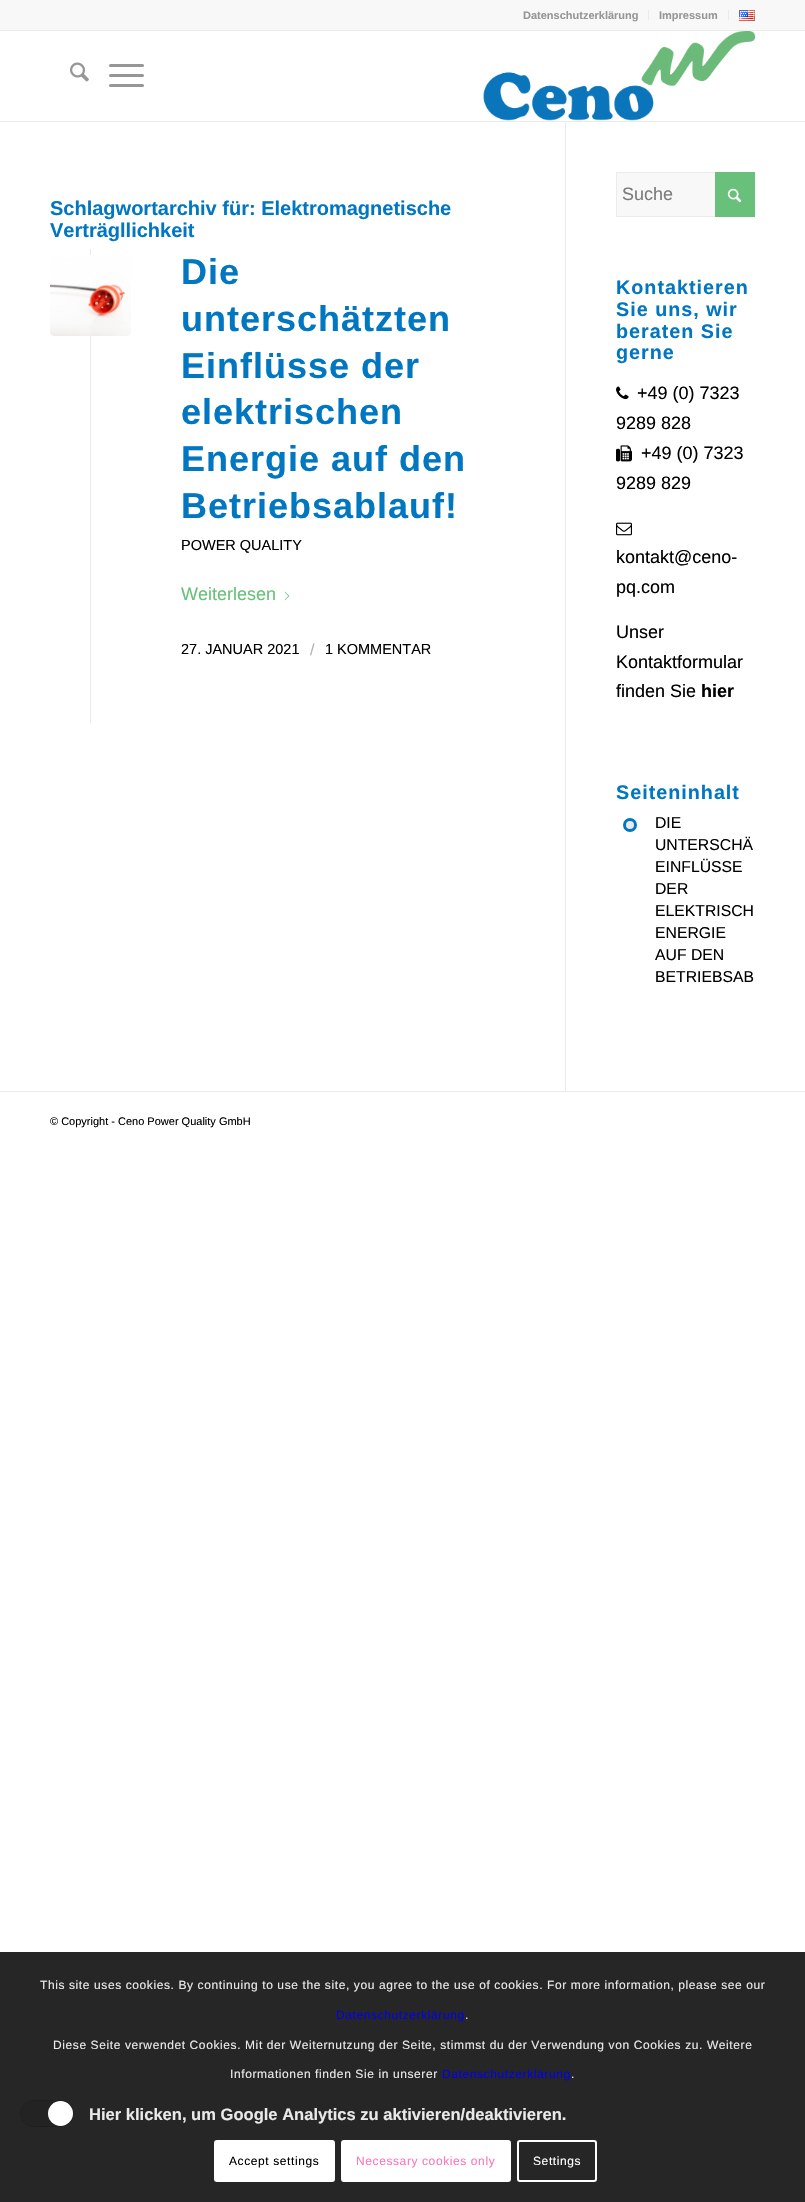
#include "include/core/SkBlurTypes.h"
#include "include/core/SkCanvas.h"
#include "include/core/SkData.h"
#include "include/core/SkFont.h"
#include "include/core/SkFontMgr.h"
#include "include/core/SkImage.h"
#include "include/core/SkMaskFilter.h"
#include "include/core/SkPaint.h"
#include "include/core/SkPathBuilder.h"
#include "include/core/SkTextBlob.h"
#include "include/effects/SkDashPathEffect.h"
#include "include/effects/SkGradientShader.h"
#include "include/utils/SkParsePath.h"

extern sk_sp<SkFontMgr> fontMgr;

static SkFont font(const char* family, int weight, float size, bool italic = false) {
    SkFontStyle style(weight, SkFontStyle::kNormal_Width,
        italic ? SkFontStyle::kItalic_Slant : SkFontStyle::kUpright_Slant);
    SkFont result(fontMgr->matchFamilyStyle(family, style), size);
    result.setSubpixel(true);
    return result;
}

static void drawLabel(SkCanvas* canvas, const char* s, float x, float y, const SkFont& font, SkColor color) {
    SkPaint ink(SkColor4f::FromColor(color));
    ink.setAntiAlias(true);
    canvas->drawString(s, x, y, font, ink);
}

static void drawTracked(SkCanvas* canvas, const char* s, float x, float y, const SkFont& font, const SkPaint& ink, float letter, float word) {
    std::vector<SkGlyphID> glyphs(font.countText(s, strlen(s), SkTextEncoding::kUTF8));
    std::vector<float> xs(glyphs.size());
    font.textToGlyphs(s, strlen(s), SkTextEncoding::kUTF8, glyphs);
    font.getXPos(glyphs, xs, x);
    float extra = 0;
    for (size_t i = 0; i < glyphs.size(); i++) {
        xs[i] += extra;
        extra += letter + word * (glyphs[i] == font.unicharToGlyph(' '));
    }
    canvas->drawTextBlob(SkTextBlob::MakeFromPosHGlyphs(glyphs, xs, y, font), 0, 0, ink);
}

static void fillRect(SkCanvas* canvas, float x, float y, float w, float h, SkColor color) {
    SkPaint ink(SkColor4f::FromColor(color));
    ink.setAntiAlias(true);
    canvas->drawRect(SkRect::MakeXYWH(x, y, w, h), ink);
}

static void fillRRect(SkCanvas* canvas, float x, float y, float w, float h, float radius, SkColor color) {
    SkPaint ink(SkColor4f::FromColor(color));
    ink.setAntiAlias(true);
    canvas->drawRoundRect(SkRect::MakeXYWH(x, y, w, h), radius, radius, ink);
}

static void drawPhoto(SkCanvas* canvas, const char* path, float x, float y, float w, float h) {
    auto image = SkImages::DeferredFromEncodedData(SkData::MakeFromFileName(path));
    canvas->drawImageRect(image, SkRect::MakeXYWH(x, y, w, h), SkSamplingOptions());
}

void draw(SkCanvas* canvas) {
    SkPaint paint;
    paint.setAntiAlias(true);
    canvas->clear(0xFFFFFFFF);
    fillRect(canvas, 0, 0, 805, 30, 0xFFF8F8F8);
    fillRect(canvas, 0, 30, 805, 1, 0xFFEBEBEB);
    fillRect(canvas, 648, 10, 1, 10, 0xFFEBEBEB);
    SkFont font1 = font("Liberation Sans", 700, 11);
    drawLabel(canvas, "Datenschutzerklärung", 523, 19, font1, 0xFF969696);
    fillRect(canvas, 728, 10, 1, 10, 0xFFEBEBEB);
    drawLabel(canvas, "Impressum", 659, 19, font1, 0xFF969696);
    drawPhoto(canvas, "assets/img1.png", 739, 10, 16, 11);
    fillRect(canvas, 0, 121, 805, 1, 0xFFEBEBEB);
    drawPhoto(canvas, "assets/img2.png", 70, 62, 19, 20);
    fillRRect(canvas, 109, 74, 35, 3, 1.5f, 0xFF969696);
    fillRRect(canvas, 109, 64, 35, 3, 1.5f, 0xFF969696);
    fillRRect(canvas, 109, 84, 35, 3, 1.5f, 0xFF969696);
    drawPhoto(canvas, "assets/img3.png", 483, 31, 272, 90);
    SkFont font2 = font("Liberation Sans", 700, 20);
    drawLabel(canvas, "Schlagwortarchiv für: Elektromagnetische", 50, 215, font2, 0xFF0177C1);
    drawLabel(canvas, "Verträgllichkeit", 50, 237, font2, 0xFF0177C1);
    fillRect(canvas, 90, 249, 1, 474, 0xFFEBEBEB);
    drawPhoto(canvas, "assets/img4.png", 50, 255, 81, 81);
    SkFont font3 = font("Liberation Sans", 700, 36);
    paint.setColor(0xFF0177C1);
    drawTracked(canvas, "Die", 181, 284, font3, paint, 1, 0);
    drawTracked(canvas, "unterschätzten", 181, 331, font3, paint, 1, 0);
    drawTracked(canvas, "Einflüsse der", 181, 378, font3, paint, 1, 0);
    drawTracked(canvas, "elektrischen", 181, 424, font3, paint, 1, 0);
    drawTracked(canvas, "Energie auf den", 181, 471, font3, paint, 1, 0);
    drawTracked(canvas, "Betriebsablauf!", 181, 518, font3, paint, 1, 0);
    SkFont font4 = font("Liberation Sans", 400, 14.5f);
    drawLabel(canvas, "POWER QUALITY", 181, 550, font4, 0xFF000000);
    SkFont font5 = font("Liberation Sans", 400, 18);
    drawLabel(canvas, "Weiterlesen", 181, 600, font5, 0xFF69C07A);
    drawPhoto(canvas, "assets/img5.png", 284, 591, 6, 10);
    drawLabel(canvas, "27. JANUAR 2021", 181, 654, font4, 0xFF000000);
    SkFont font6 = font("Liberation Sans", 400, 16);
    drawLabel(canvas, "/", 310, 655, font6, 0xFFB3B3B3);
    drawLabel(canvas, "1 KOMMENTAR", 325, 654, font4, 0xFF000000);
    fillRect(canvas, 565, 122, 1, 970, 0xFFEBEBEB);
    fillRect(canvas, 617, 173, 98, 43, 0xFFF8F8F8);
    paint.setStroke(true);
    paint.setStrokeWidth(1);
    paint.setColor(0xFFEBEBEB);
    canvas->drawRect(SkRect::MakeXYWH(616.5f, 172.5f, 138, 44), paint);
    drawLabel(canvas, "Suche", 622, 200, font5, 0xFF7C7C7C);
    fillRect(canvas, 715, 172, 40, 45, 0xFF69C07A);
    drawPhoto(canvas, "assets/img6.png", 727, 188, 15, 15);
    SkFont font7 = font("Liberation Sans", 700, 19.75f);
    paint.setStroke(false);
    paint.setColor(0xFF0177C1);
    drawTracked(canvas, "Kontaktieren", 616, 294, font7, paint, 1, 0);
    drawTracked(canvas, "Sie uns, wir", 616, 316, font7, paint, 1, 0);
    drawTracked(canvas, "beraten Sie", 616, 338, font7, paint, 1, 0);
    drawTracked(canvas, "gerne", 616, 359, font7, paint, 1, 0);
    drawPhoto(canvas, "assets/img7.png", 616, 386, 13, 14);
    drawLabel(canvas, "+49 (0) 7323", 637, 399, font5, 0xFF000000);
    drawLabel(canvas, "9289 828", 616, 429, font5, 0xFF000000);
    drawPhoto(canvas, "assets/img8.png", 616, 445, 16, 17);
    drawLabel(canvas, "+49 (0) 7323", 641, 459, font5, 0xFF000000);
    drawLabel(canvas, "9289 829", 616, 489, font5, 0xFF000000);
    drawPhoto(canvas, "assets/img9.png", 616, 522, 16, 14);
    drawLabel(canvas, "kontakt@ceno-", 616, 563, font5, 0xFF000000);
    drawLabel(canvas, "pq.com", 616, 593, font5, 0xFF000000);
    drawLabel(canvas, "Unser", 616, 638, font5, 0xFF000000);
    drawLabel(canvas, "Kontaktformular", 616, 668, font5, 0xFF000000);
    drawLabel(canvas, "finden Sie", 616, 697, font5, 0xFF000000);
    SkFont font8 = font("Liberation Sans", 700, 18);
    drawLabel(canvas, "hier", 701, 697, font8, 0xFF000000);
    drawTracked(canvas, "Seiteninhalt", 616, 799, font7, paint, 1, 0);
    paint.setColor(0xFFEBEBEB);
    canvas->drawCircle(630, 825, 5.5f, paint);
    paint.setStroke(true);
    paint.setStrokeWidth(3);
    paint.setColor(0xFF0177C1);
    canvas->drawCircle(630, 825, 5.5f, paint);
    SkFont font9 = font("Liberation Sans", 400, 15.75f);
    drawLabel(canvas, "DIE", 655, 828, font9, 0xFF000000);
    drawLabel(canvas, "UNTERSCHÄ", 655, 850, font9, 0xFF000000);
    drawLabel(canvas, "EINFLÜSSE", 655, 872, font9, 0xFF000000);
    drawLabel(canvas, "DER", 655, 894, font9, 0xFF000000);
    drawLabel(canvas, "ELEKTRISCH", 655, 916, font9, 0xFF000000);
    drawLabel(canvas, "ENERGIE", 655, 938, font9, 0xFF000000);
    drawLabel(canvas, "AUF DEN", 655, 960, font9, 0xFF000000);
    drawLabel(canvas, "BETRIEBSAB", 655, 982, font9, 0xFF000000);
    fillRect(canvas, 0, 1091, 805, 1, 0xFFEBEBEB);
    SkFont font10 = font("Liberation Sans", 400, 11);
    drawLabel(canvas, "© Copyright - Ceno Power Quality GmbH", 50, 1125, font10, 0xFF000000);
    fillRect(canvas, 0, 1952, 805, 250, 0xFF262626);
    SkFont font11 = font("Liberation Sans", 400, 12);
    paint.setStroke(false);
    paint.setColor(0xFFE9E9E9);
    drawTracked(canvas, "This site uses cookies. By continuing to use the site, you agree to the use of cookies. For more information, please see our", 40, 1989, font11, paint, 0.6f, 0);
    paint.setColor(0xFF0000EE);
    drawTracked(canvas, "Datenschutzerklärung", 336, 2019, font11, paint, 0.6f, 0);
    paint.setColor(0xFFE9E9E9);
    drawTracked(canvas, ".", 465, 2019, font11, paint, 0.6f, 0);
    drawTracked(canvas, "Diese Seite verwendet Cookies. Mit der Weiternutzung der Seite, stimmst du der Verwendung von Cookies zu. Weitere", 53, 2049, font11, paint, 0.6f, 0);
    drawTracked(canvas, "Informationen finden Sie in unserer", 230, 2078, font11, paint, 0.6f, 0);
    paint.setColor(0xFF0000EE);
    drawTracked(canvas, "Datenschutzerklärung", 442, 2078, font11, paint, 0.6f, 0);
    paint.setColor(0xFFE9E9E9);
    drawTracked(canvas, ".", 571, 2078, font11, paint, 0.6f, 0);
    paint.setColor(0xFF232323);
    canvas->drawRoundRect(SkRect::MakeXYWH(20.5f, 2100.5f, 53, 26), 13, 13, paint);
    paint.setStroke(true);
    paint.setStrokeWidth(1);
    paint.setColor(0xFF1E1E1E);
    canvas->drawRoundRect(SkRect::MakeXYWH(20.5f, 2100.5f, 53, 26), 13, 13, paint);
    paint.setStroke(false);
    paint.setColor(0xFFFFFFFF);
    canvas->drawCircle(60.5f, 2113.5f, 12.5f, paint);
    SkFont font12 = font("Liberation Sans", 700, 16.55f);
    drawLabel(canvas, "Hier klicken, um Google Analytics zu aktivieren/deaktivieren.", 89, 2120, font12, 0xFFE9E9E9);
    fillRRect(canvas, 214, 2140, 121, 42, 3, 0xFFFFFFFF);
    paint.setColor(0xFF000000);
    drawTracked(canvas, "Accept settings", 229, 2165, font11, paint, 0.6f, 0);
    paint.setColor(0xFFFFFFFF);
    canvas->drawRoundRect(SkRect::MakeXYWH(342, 2141, 168, 40), 2, 2, paint);
    paint.setStroke(true);
    paint.setStrokeWidth(2);
    canvas->drawRoundRect(SkRect::MakeXYWH(342, 2141, 168, 40), 2, 2, paint);
    paint.setStroke(false);
    paint.setColor(0xFFFF75B5);
    drawTracked(canvas, "Necessary cookies only", 356, 2165, font11, paint, 0.6f, 0);
    paint.setStroke(true);
    paint.setColor(0xFFFFFFFF);
    canvas->drawRoundRect(SkRect::MakeXYWH(518, 2141, 78, 40), 2, 2, paint);
    paint.setStroke(false);
    drawTracked(canvas, "Settings", 533, 2165, font11, paint, 0.6f, 0);
}
